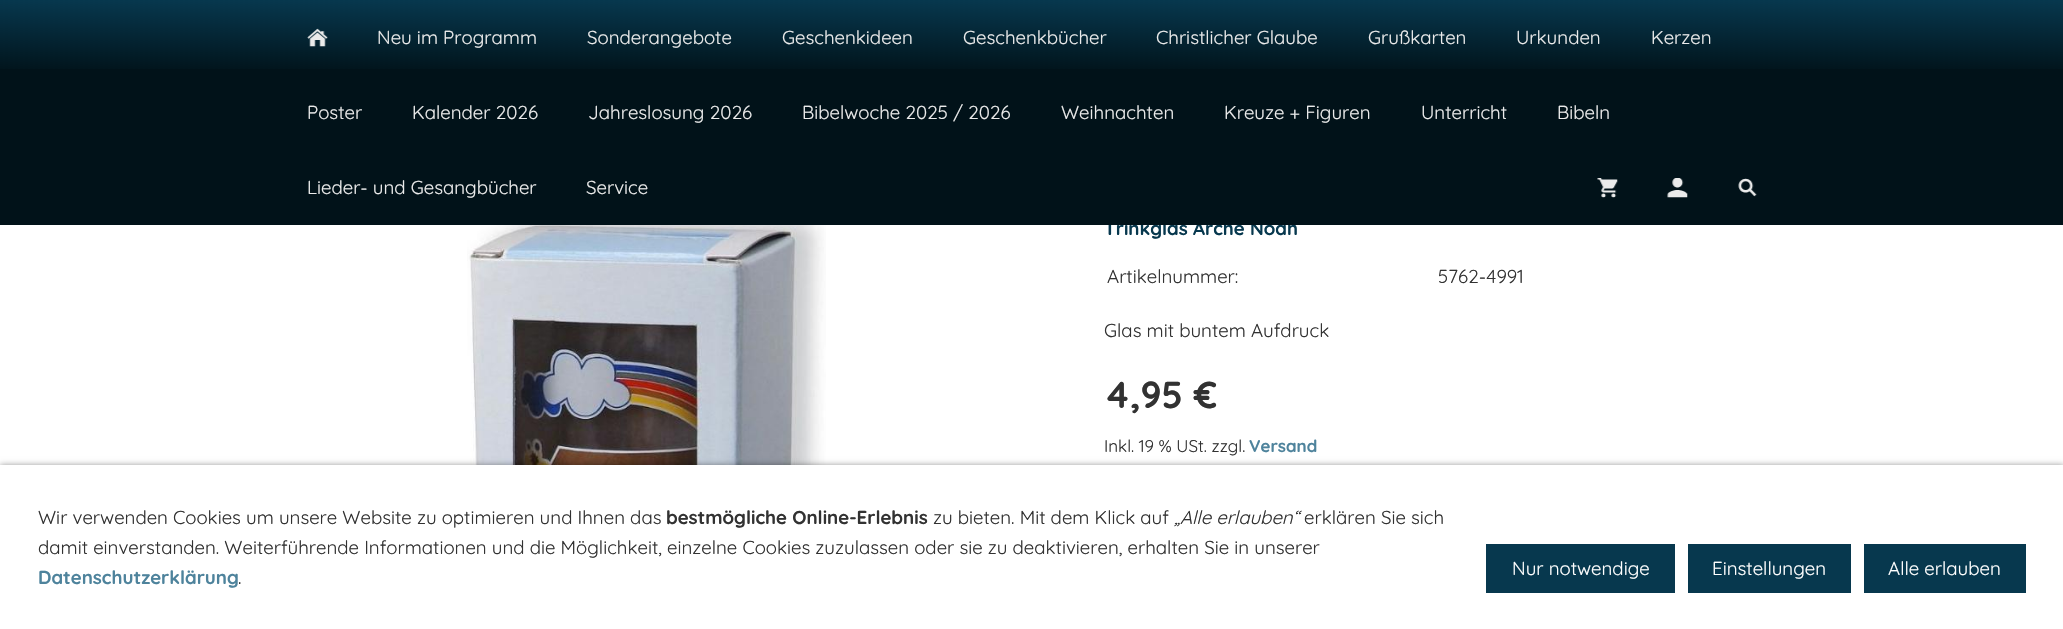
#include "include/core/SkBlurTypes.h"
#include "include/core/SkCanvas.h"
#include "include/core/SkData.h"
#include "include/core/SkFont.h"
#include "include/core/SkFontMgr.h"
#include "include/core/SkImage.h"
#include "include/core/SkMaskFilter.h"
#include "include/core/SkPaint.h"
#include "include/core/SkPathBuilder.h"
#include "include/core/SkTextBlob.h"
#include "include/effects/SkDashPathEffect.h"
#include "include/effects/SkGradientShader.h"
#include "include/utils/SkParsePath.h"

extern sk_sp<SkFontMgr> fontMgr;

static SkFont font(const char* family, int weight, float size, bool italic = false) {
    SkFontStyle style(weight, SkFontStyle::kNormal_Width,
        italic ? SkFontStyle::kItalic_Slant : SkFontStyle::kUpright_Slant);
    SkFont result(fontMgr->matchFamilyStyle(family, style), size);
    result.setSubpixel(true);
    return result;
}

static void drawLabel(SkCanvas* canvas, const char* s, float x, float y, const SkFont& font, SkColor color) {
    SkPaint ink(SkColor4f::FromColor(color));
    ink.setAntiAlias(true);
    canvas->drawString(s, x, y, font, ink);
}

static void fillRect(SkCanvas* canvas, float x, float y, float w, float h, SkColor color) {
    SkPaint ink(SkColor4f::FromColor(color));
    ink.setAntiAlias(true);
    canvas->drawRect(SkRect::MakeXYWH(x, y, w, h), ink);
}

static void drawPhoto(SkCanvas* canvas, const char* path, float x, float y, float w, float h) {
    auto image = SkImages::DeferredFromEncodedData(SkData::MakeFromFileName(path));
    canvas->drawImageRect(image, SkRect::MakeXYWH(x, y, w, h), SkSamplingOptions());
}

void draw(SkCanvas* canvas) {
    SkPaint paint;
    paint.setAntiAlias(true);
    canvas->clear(0xFFFFFFFF);
    SkFont font1 = font("Quicksand", 300, 18.75f);
    drawLabel(canvas, "Trinkglas Arche Noah", 1104, 235, font1, 0xFF07384E);
    fillRect(canvas, 0, 69, 2063, 156, 0xFF011219);
    drawPhoto(canvas, "assets/img1.png", 0, 0, 2063, 69);
    drawPhoto(canvas, "assets/img2.png", 307, 28, 21, 19);
    SkFont font2 = font("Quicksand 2", 300, 18.75f);
    drawLabel(canvas, "Neu im Programm", 377, 44, font2, 0xFFEBEBEB);
    drawLabel(canvas, "Sonderangebote", 587, 44, font2, 0xFFEBEBEB);
    drawLabel(canvas, "Geschenkideen", 782, 44, font2, 0xFFEBEBEB);
    drawLabel(canvas, "Geschenkbücher", 963, 44, font2, 0xFFEBEBEB);
    drawLabel(canvas, "Christlicher Glaube", 1156, 44, font2, 0xFFEBEBEB);
    drawLabel(canvas, "Grußkarten", 1368, 44, font2, 0xFFEBEBEB);
    drawLabel(canvas, "Urkunden", 1516, 44, font2, 0xFFEBEBEB);
    drawLabel(canvas, "Kerzen", 1651, 44, font2, 0xFFEBEBEB);
    drawLabel(canvas, "Poster", 307, 119, font2, 0xFFEBEBEB);
    drawLabel(canvas, "Kalender 2026", 412, 119, font2, 0xFFEBEBEB);
    drawLabel(canvas, "Jahreslosung 2026", 588, 119, font2, 0xFFEBEBEB);
    drawLabel(canvas, "Bibelwoche 2025 / 2026", 802, 119, font2, 0xFFEBEBEB);
    drawLabel(canvas, "Weihnachten", 1061, 119, font2, 0xFFEBEBEB);
    drawLabel(canvas, "Kreuze + Figuren", 1224, 119, font2, 0xFFEBEBEB);
    drawLabel(canvas, "Unterricht", 1421, 119, font2, 0xFFEBEBEB);
    drawLabel(canvas, "Bibeln", 1557, 119, font2, 0xFFEBEBEB);
    drawLabel(canvas, "Lieder- und Gesangbücher", 307, 194, font2, 0xFFEBEBEB);
    drawLabel(canvas, "Service", 586, 194, font2, 0xFFEBEBEB);
    drawPhoto(canvas, "assets/img3.png", 1597, 178, 21, 20);
    drawPhoto(canvas, "assets/img4.png", 1667, 178, 21, 20);
    drawPhoto(canvas, "assets/img5.png", 1738, 178, 19, 19);
    drawPhoto(canvas, "assets/img6.png", 467, 225, 359, 240);
    drawLabel(canvas, "Artikelnummer:", 1107, 283, font2, 0xFF323232);
    drawLabel(canvas, "5762-4991", 1438, 283, font2, 0xFF323232);
    drawLabel(canvas, "Glas mit buntem Aufdruck", 1104, 337, font2, 0xFF323232);
    SkFont font3 = font("Quicksand", 300, 37.5f);
    drawLabel(canvas, "4,95 €", 1104, 408, font3, 0xFF323232);
    SkFont font4 = font("Quicksand 2", 300, 17);
    drawLabel(canvas, "Inkl. 19 % USt. zzgl.", 1104, 452, font4, 0xFF323232);
    SkFont font5 = font("Quicksand", 300, 17);
    drawLabel(canvas, "Versand", 1249, 452, font5, 0xFF4E839C);
    paint.setColor(0x66000000);
    paint.setMaskFilter(SkMaskFilter::MakeBlur(kNormal_SkBlurStyle, 3));
    canvas->drawRect(SkRect::MakeXYWH(0, 465, 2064, 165), paint);
    paint.setMaskFilter(nullptr);
    fillRect(canvas, 0, 465, 2063, 164, 0xFFFFFFFF);
    drawLabel(canvas, "Wir verwenden Cookies um unsere Website zu optimieren und Ihnen das", 38, 524, font2, 0xFF323232);
    drawLabel(canvas, "bestmögliche Online-Erlebnis", 666, 524, font1, 0xFF323232);
    drawLabel(canvas, "zu bieten. Mit dem Klick auf", 933, 524, font2, 0xFF323232);
    SkFont font6 = font("Quicksand", 300, 18.75f, true);
    drawLabel(canvas, "„Alle erlauben“", 1174, 524, font6, 0xFF323232);
    drawLabel(canvas, "erklären Sie sich", 1304, 524, font2, 0xFF323232);
    drawLabel(canvas, "damit einverstanden. Weiterführende Informationen und die Möglichkeit, einzelne Cookies zuzulassen oder sie zu deaktivieren, erhalten Sie in unserer", 38, 554, font2, 0xFF323232);
    drawLabel(canvas, "Datenschutzerklärung", 38, 584, font1, 0xFF4E839C);
    drawLabel(canvas, ".", 238, 584, font2, 0xFF323232);
    fillRect(canvas, 1486, 544, 189, 49, 0xFF07384E);
    drawLabel(canvas, "Nur notwendige", 1512, 575, font2, 0xFFFFFFFF);
    fillRect(canvas, 1688, 544, 163, 49, 0xFF07384E);
    drawLabel(canvas, "Einstellungen", 1712, 575, font2, 0xFFFFFFFF);
    fillRect(canvas, 1864, 544, 162, 49, 0xFF07384E);
    drawLabel(canvas, "Alle erlauben", 1888, 575, font2, 0xFFFFFFFF);
}
